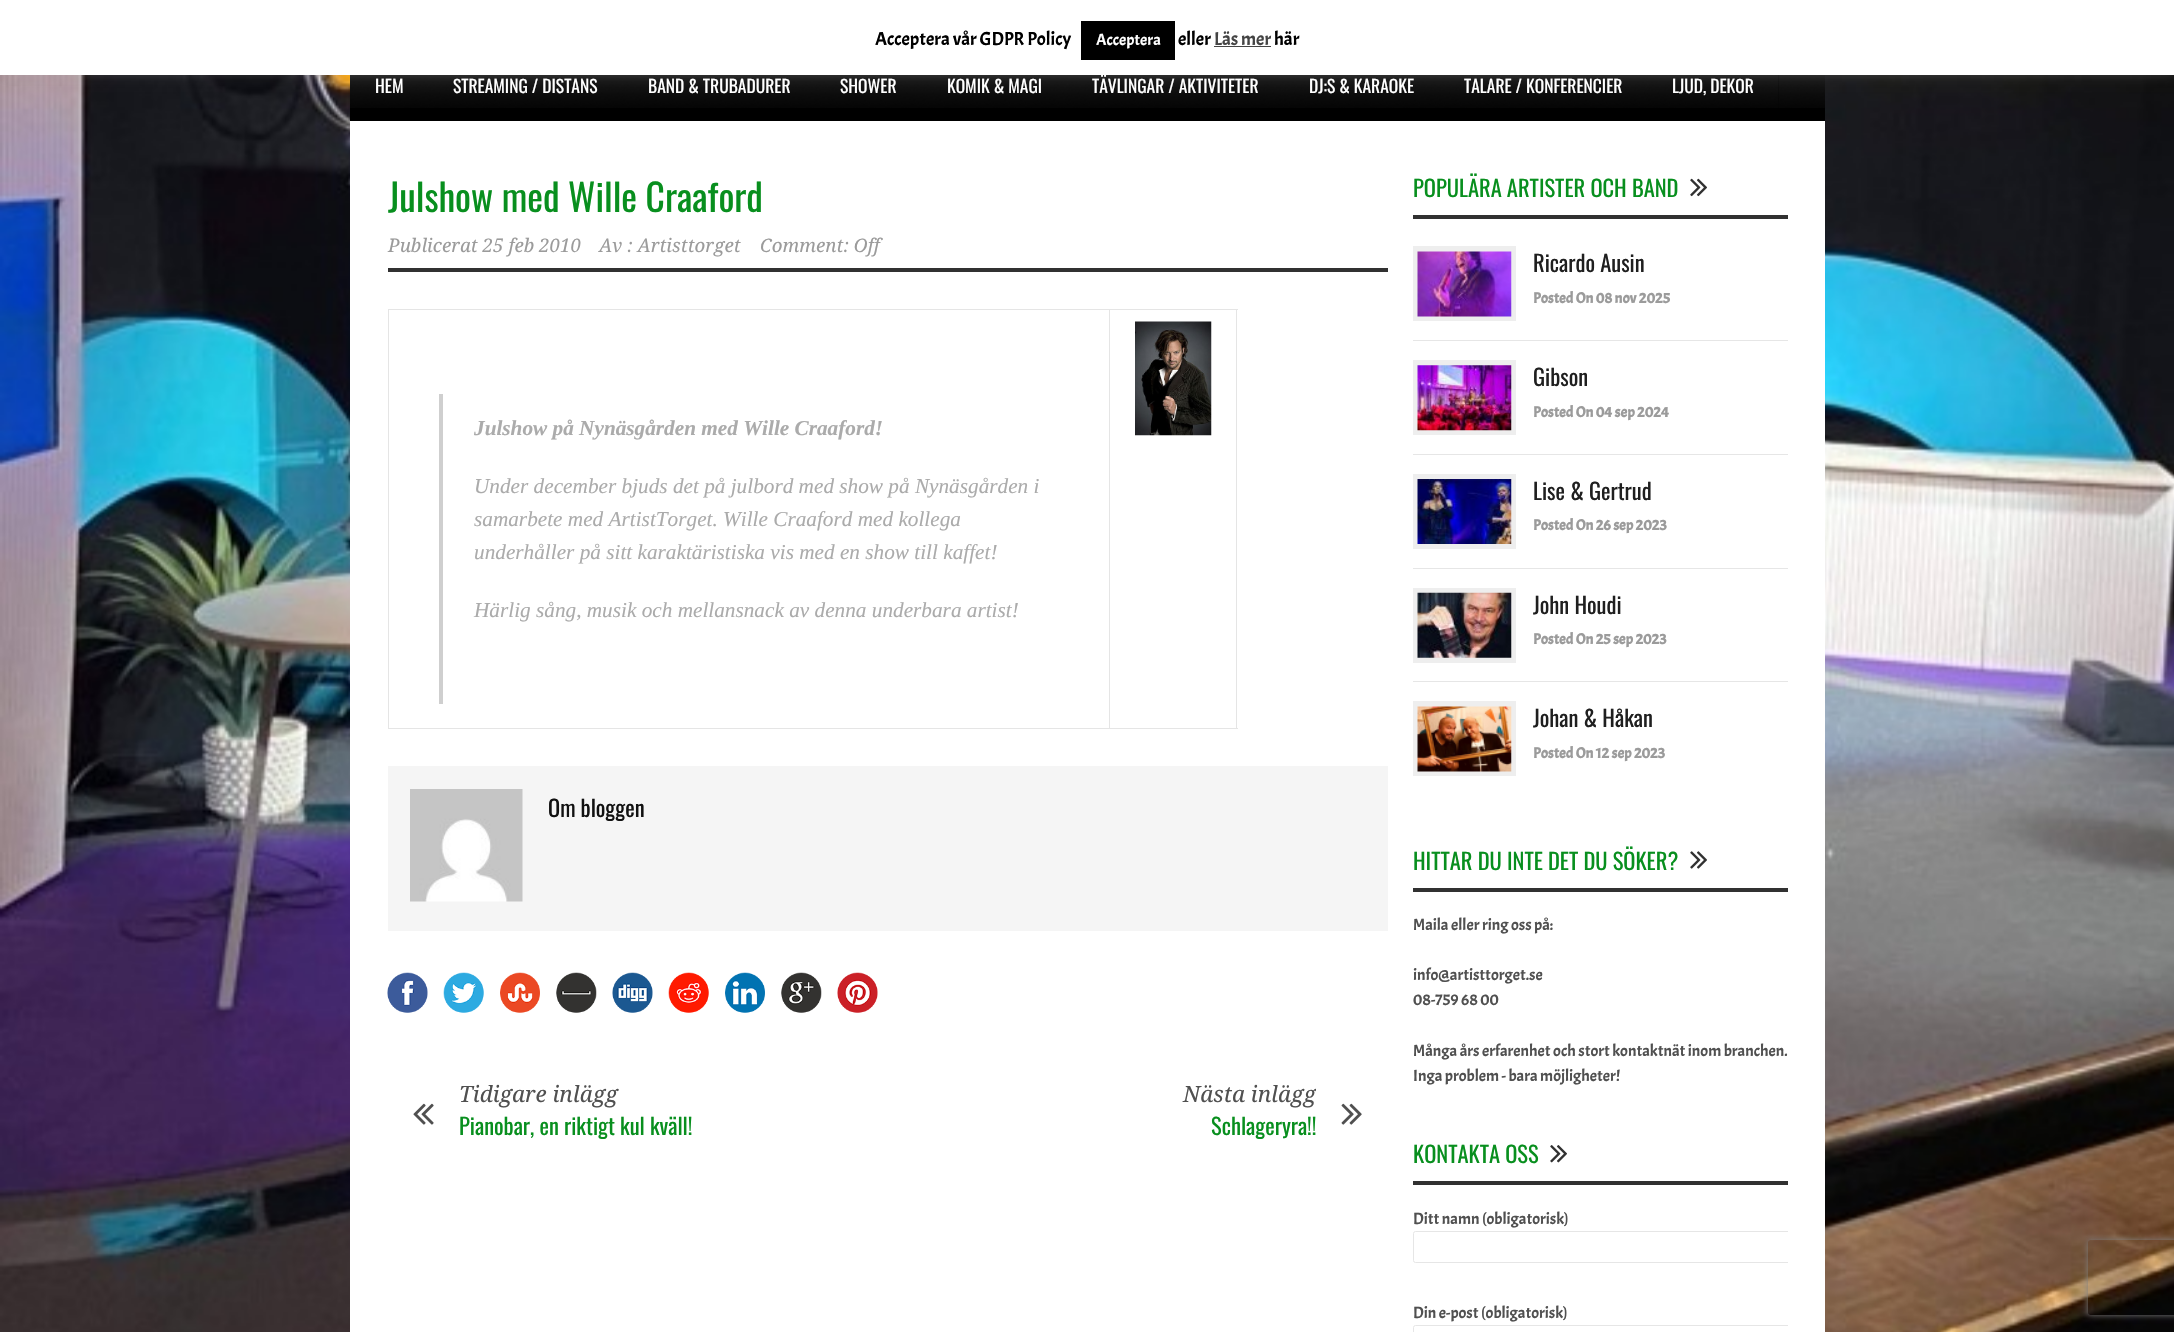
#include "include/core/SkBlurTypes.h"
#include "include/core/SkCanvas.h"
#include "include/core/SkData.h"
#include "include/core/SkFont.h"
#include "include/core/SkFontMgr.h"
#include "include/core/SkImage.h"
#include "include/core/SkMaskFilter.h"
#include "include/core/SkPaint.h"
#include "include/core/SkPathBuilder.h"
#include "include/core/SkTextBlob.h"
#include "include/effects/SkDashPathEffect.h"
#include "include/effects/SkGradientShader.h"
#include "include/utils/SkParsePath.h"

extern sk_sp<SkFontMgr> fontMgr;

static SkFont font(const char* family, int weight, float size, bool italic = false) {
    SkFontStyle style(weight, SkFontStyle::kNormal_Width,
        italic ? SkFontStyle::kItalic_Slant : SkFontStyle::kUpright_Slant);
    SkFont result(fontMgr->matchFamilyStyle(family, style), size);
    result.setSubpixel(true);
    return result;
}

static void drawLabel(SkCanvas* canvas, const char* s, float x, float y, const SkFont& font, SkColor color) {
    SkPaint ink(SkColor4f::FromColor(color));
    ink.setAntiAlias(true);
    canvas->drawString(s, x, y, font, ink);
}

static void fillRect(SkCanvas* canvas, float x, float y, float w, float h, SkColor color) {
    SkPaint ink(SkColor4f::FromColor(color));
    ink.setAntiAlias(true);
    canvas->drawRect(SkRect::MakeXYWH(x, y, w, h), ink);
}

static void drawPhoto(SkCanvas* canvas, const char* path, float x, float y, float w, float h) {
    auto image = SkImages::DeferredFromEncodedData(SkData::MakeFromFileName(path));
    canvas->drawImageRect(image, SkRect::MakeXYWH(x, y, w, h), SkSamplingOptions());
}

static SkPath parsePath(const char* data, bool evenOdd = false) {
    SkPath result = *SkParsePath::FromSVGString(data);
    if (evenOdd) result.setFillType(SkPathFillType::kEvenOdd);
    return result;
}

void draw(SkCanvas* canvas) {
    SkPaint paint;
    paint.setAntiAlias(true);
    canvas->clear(0xFFFFFFFF);
    drawPhoto(canvas, "assets/img32.png", 0, 75, 2174, 1257);
    fillRect(canvas, 1779, 75, 46, 46, 0xFF000000);
    drawPhoto(canvas, "assets/img1.png", 1779, 75, 46, 33);
    fillRect(canvas, 350, 75, 1429, 46, 0xFF000000);
    drawPhoto(canvas, "assets/img2.png", 350, 75, 79, 33);
    drawPhoto(canvas, "assets/img3.png", 428, 75, 195, 33);
    drawPhoto(canvas, "assets/img4.png", 622, 75, 193, 33);
    drawPhoto(canvas, "assets/img5.png", 815, 75, 108, 33);
    drawPhoto(canvas, "assets/img6.png", 922, 75, 146, 33);
    drawPhoto(canvas, "assets/img7.png", 1067, 75, 217, 33);
    drawPhoto(canvas, "assets/img8.png", 1283, 75, 156, 33);
    drawPhoto(canvas, "assets/img9.png", 1438, 75, 210, 33);
    drawPhoto(canvas, "assets/img10.png", 1647, 75, 132, 33);
    paint.setColor(0x4DACABAB);
    paint.setMaskFilter(SkMaskFilter::MakeBlur(kNormal_SkBlurStyle, 6));
    canvas->drawRect(SkRect::MakeXYWH(0, -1, 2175, 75), paint);
    paint.setMaskFilter(nullptr);
    fillRect(canvas, 0, 0, 2174, 75, 0xFFFFFFFF);
    SkFont font1 = font("Acme", 400, 18.75f);
    drawLabel(canvas, "Acceptera vår GDPR Policy", 875, 45, font1, 0xFF000000);
    fillRect(canvas, 1081, 21, 94, 39, 0xFF000000);
    SkFont font2 = font("Acme", 400, 16.25f);
    drawLabel(canvas, "Acceptera", 1096, 45, font2, 0xFFFFFFFF);
    drawLabel(canvas, "eller", 1178, 45, font1, 0xFF000000);
    drawLabel(canvas, "Läs mer", 1214, 45, font1, 0xFF444444);
    fillRect(canvas, 1214, 46, 57, 1, 0xFF444444);
    drawLabel(canvas, "här", 1274, 45, font1, 0xFF000000);
    SkFont font3 = font("Oswald", 400, 17.5f);
    drawLabel(canvas, "HEM", 375, 93, font3, 0xFFFFFFFF);
    drawLabel(canvas, "STREAMING / DISTANS", 453, 93, font3, 0xFFFFFFFF);
    drawLabel(canvas, "BAND & TRUBADURER", 648, 93, font3, 0xFFFFFFFF);
    drawLabel(canvas, "SHOWER", 840, 93, font3, 0xFFFFFFFF);
    drawLabel(canvas, "KOMIK & MAGI", 947, 93, font3, 0xFFFFFFFF);
    drawLabel(canvas, "TÄVLINGAR / AKTIVITETER", 1092, 93, font3, 0xFFFFFFFF);
    drawLabel(canvas, "DJ:S & KARAOKE", 1309, 93, font3, 0xFFFFFFFF);
    drawLabel(canvas, "TALARE / KONFERENCIER", 1464, 93, font3, 0xFFFFFFFF);
    drawLabel(canvas, "LJUD, DEKOR", 1672, 93, font3, 0xFFFFFFFF);
    fillRect(canvas, 350, 121, 1475, 1211, 0xFFFFFFFF);
    SkFont font4 = font("Oswald", 400, 37.5f);
    drawLabel(canvas, "Julshow med Wille Craaford", 388, 212, font4, 0xFF088F1E);
    fillRect(canvas, 388, 268, 1000, 4, 0xFF313131);
    SkFont font5 = font("Droid Serif", 400, 18.75f, true);
    drawLabel(canvas, "Publicerat 25 feb 2010", 388, 252, font5, 0xFF9B9B9B);
    drawLabel(canvas, "Av : Artisttorget", 599, 252, font5, 0xFF9B9B9B);
    drawLabel(canvas, "Comment: Off", 760, 252, font5, 0xFF9B9B9B);
    fillRect(canvas, 388, 309, 850, 1, 0xFFE5E5E5);
    fillRect(canvas, 1236, 309, 1, 420, 0xFFE5E5E5);
    fillRect(canvas, 388, 728, 850, 1, 0xFFE5E5E5);
    fillRect(canvas, 388, 309, 1, 420, 0xFFE5E5E5);
    drawPhoto(canvas, "assets/img11.png", 1135, 321, 77, 115);
    fillRect(canvas, 1109, 309, 1, 420, 0xFFE5E5E5);
    fillRect(canvas, 439, 394, 4, 310, 0xFFCFCFCF);
    SkFont font6 = font("Liberation Serif", 700, 21.25f, true);
    drawLabel(canvas, "Julshow på Nynäsgården med Wille Craaford!", 474, 435, font6, 0xFFABABAB);
    SkFont font7 = font("Liberation Serif", 400, 21.25f, true);
    drawLabel(canvas, "Under december bjuds det på julbord med show på Nynäsgården i", 474, 493, font7, 0xFFABABAB);
    drawLabel(canvas, "samarbete med ArtistTorget. Wille Craaford med kollega", 474, 526, font7, 0xFFABABAB);
    drawLabel(canvas, "underhåller på sitt karaktäristiska vis med en show till kaffet!", 474, 559, font7, 0xFFABABAB);
    drawLabel(canvas, "Härlig sång, musik och mellansnack av denna underbara artist!", 474, 617, font7, 0xFFABABAB);
    fillRect(canvas, 388, 766, 1000, 165, 0xFFF5F5F5);
    drawPhoto(canvas, "assets/img12.png", 410, 789, 113, 113);
    SkFont font8 = font("Oswald", 400, 22.5f);
    drawLabel(canvas, "Om bloggen", 548, 817, font8, 0xFF111111);
    drawPhoto(canvas, "assets/img13.png", 387, 972, 41, 41);
    drawPhoto(canvas, "assets/img14.png", 443, 972, 41, 41);
    drawPhoto(canvas, "assets/img15.png", 500, 972, 40, 41);
    drawPhoto(canvas, "assets/img16.png", 556, 972, 41, 41);
    drawPhoto(canvas, "assets/img17.png", 612, 972, 41, 41);
    drawPhoto(canvas, "assets/img18.png", 668, 972, 41, 41);
    drawPhoto(canvas, "assets/img19.png", 725, 972, 40, 41);
    drawPhoto(canvas, "assets/img20.png", 781, 972, 41, 41);
    drawPhoto(canvas, "assets/img21.png", 837, 972, 41, 41);
    drawPhoto(canvas, "assets/img22.png", 413, 1103, 21, 22);
    SkFont font9 = font("Droid Serif", 400, 22.5f, true);
    drawLabel(canvas, "Tidigare inlägg", 459, 1102, font9, 0xFF505050);
    drawLabel(canvas, "Pianobar, en riktigt kul kväll!", 459, 1135, font8, 0xFF088F1E);
    canvas->save();
    canvas->clipRect(SkRect::MakeXYWH(888, 1076, 428, 84));
    drawLabel(canvas, "Nästa inlägg", 1183, 1102, font9, 0xFF505050);
    canvas->restore();
    drawLabel(canvas, "Schlageryra!!", 1211, 1135, font8, 0xFF088F1E);
    drawPhoto(canvas, "assets/img23.png", 1341, 1103, 21, 22);
    fillRect(canvas, 1413, 215, 375, 4, 0xFF313131);
    drawLabel(canvas, "POPULÄRA ARTISTER OCH BAND", 1413, 197, font8, 0xFF088F1E);
    drawPhoto(canvas, "assets/img24.png", 1690, 178, 17, 19);
    fillRect(canvas, 1413, 340, 375, 1, 0xFFE6E6E6);
    fillRect(canvas, 1413, 246, 103, 75, 0xFFEEEEEE);
    drawPhoto(canvas, "assets/img25.png", 1417, 251, 95, 66);
    drawLabel(canvas, "Ricardo Ausin", 1533, 272, font8, 0xFF1F1F1F);
    SkFont font10 = font("Acme", 700, 15);
    drawLabel(canvas, "Posted On 08 nov 2025", 1533, 303, font10, 0xFF9B9B9B);
    fillRect(canvas, 1413, 454, 375, 1, 0xFFE6E6E6);
    fillRect(canvas, 1413, 360, 103, 75, 0xFFEEEEEE);
    drawPhoto(canvas, "assets/img26.png", 1417, 365, 95, 66);
    drawLabel(canvas, "Gibson", 1533, 386, font8, 0xFF1F1F1F);
    drawLabel(canvas, "Posted On 04 sep 2024", 1533, 417, font10, 0xFF9B9B9B);
    fillRect(canvas, 1413, 568, 375, 1, 0xFFE6E6E6);
    fillRect(canvas, 1413, 474, 103, 75, 0xFFEEEEEE);
    drawPhoto(canvas, "assets/img27.png", 1417, 479, 95, 65);
    drawLabel(canvas, "Lise & Gertrud", 1533, 500, font8, 0xFF1F1F1F);
    drawLabel(canvas, "Posted On 26 sep 2023", 1533, 530, font10, 0xFF9B9B9B);
    fillRect(canvas, 1413, 681, 375, 1, 0xFFE6E6E6);
    fillRect(canvas, 1413, 588, 103, 75, 0xFFEEEEEE);
    drawPhoto(canvas, "assets/img28.png", 1417, 592, 95, 66);
    canvas->save();
    canvas->clipRect(SkRect::MakeXYWH(1533, 588, 255, 63));
    drawLabel(canvas, "John Houdi", 1533, 614, font8, 0xFF1F1F1F);
    canvas->restore();
    drawLabel(canvas, "Posted On 25 sep 2023", 1533, 644, font10, 0xFF9B9B9B);
    fillRect(canvas, 1413, 701, 103, 75, 0xFFEEEEEE);
    drawPhoto(canvas, "assets/img29.png", 1417, 706, 95, 66);
    canvas->save();
    canvas->clipRect(SkRect::MakeXYWH(1533, 701, 255, 64));
    drawLabel(canvas, "Johan & Håkan", 1533, 727, font8, 0xFF1F1F1F);
    canvas->restore();
    drawLabel(canvas, "Posted On 12 sep 2023", 1533, 758, font10, 0xFF9B9B9B);
    fillRect(canvas, 1413, 888, 375, 4, 0xFF313131);
    drawLabel(canvas, "HITTAR DU INTE DET DU SÖKER?", 1413, 870, font8, 0xFF088F1E);
    drawPhoto(canvas, "assets/img30.png", 1690, 851, 17, 18);
    drawLabel(canvas, "Maila eller ring oss på:", 1413, 930, font2, 0xFF505050);
    drawLabel(canvas, "info@artisttorget.se", 1413, 980, font2, 0xFF505050);
    drawLabel(canvas, "08-759 68 00", 1413, 1005, font2, 0xFF505050);
    drawLabel(canvas, "Många års erfarenhet och stort kontaktnät inom branchen.", 1413, 1056, font2, 0xFF505050);
    drawLabel(canvas, "Inga problem - bara möjligheter!", 1413, 1081, font2, 0xFF505050);
    fillRect(canvas, 1413, 1181, 375, 4, 0xFF313131);
    drawLabel(canvas, "KONTAKTA OSS", 1413, 1163, font8, 0xFF088F1E);
    drawPhoto(canvas, "assets/img31.png", 1550, 1145, 17, 18);
    drawLabel(canvas, "Ditt namn (obligatorisk)", 1413, 1224, font2, 0xFF505050);
    canvas->save();
    canvas->clipRect(SkRect::MakeXYWH(1413, 121, 375, 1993));
    paint.setStroke(true);
    paint.setStrokeWidth(1);
    paint.setColor(0xFFE6E6E6);
    canvas->drawRoundRect(SkRect::MakeXYWH(1413.5f, 1231.5f, 386, 31), 2, 2, paint);
    canvas->restore();
    drawLabel(canvas, "Din e-post (obligatorisk)", 1413, 1318, font2, 0xFF505050);
    canvas->save();
    canvas->clipRect(SkRect::MakeXYWH(1413, 121, 375, 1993));
    canvas->drawRoundRect(SkRect::MakeXYWH(1413.5f, 1325.5f, 386, 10), 2, 2, paint);
    canvas->restore();
    canvas->save();
    canvas->clipPath(parsePath("M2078 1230H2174V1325H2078ZM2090.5 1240H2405.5C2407 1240 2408 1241 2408 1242.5V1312.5C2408 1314 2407 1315 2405.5 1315H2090.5C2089 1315 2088 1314 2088 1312.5V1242.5C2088 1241 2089 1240 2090.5 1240Z", true), true);
    paint.setStroke(false);
    paint.setColor(0xFF808080);
    paint.setMaskFilter(SkMaskFilter::MakeBlur(kNormal_SkBlurStyle, 3));
    canvas->drawRoundRect(SkRect::MakeXYWH(2088, 1240, 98, 75), 2.5f, 2.5f, paint);
    paint.setMaskFilter(nullptr);
    canvas->restore();
}
